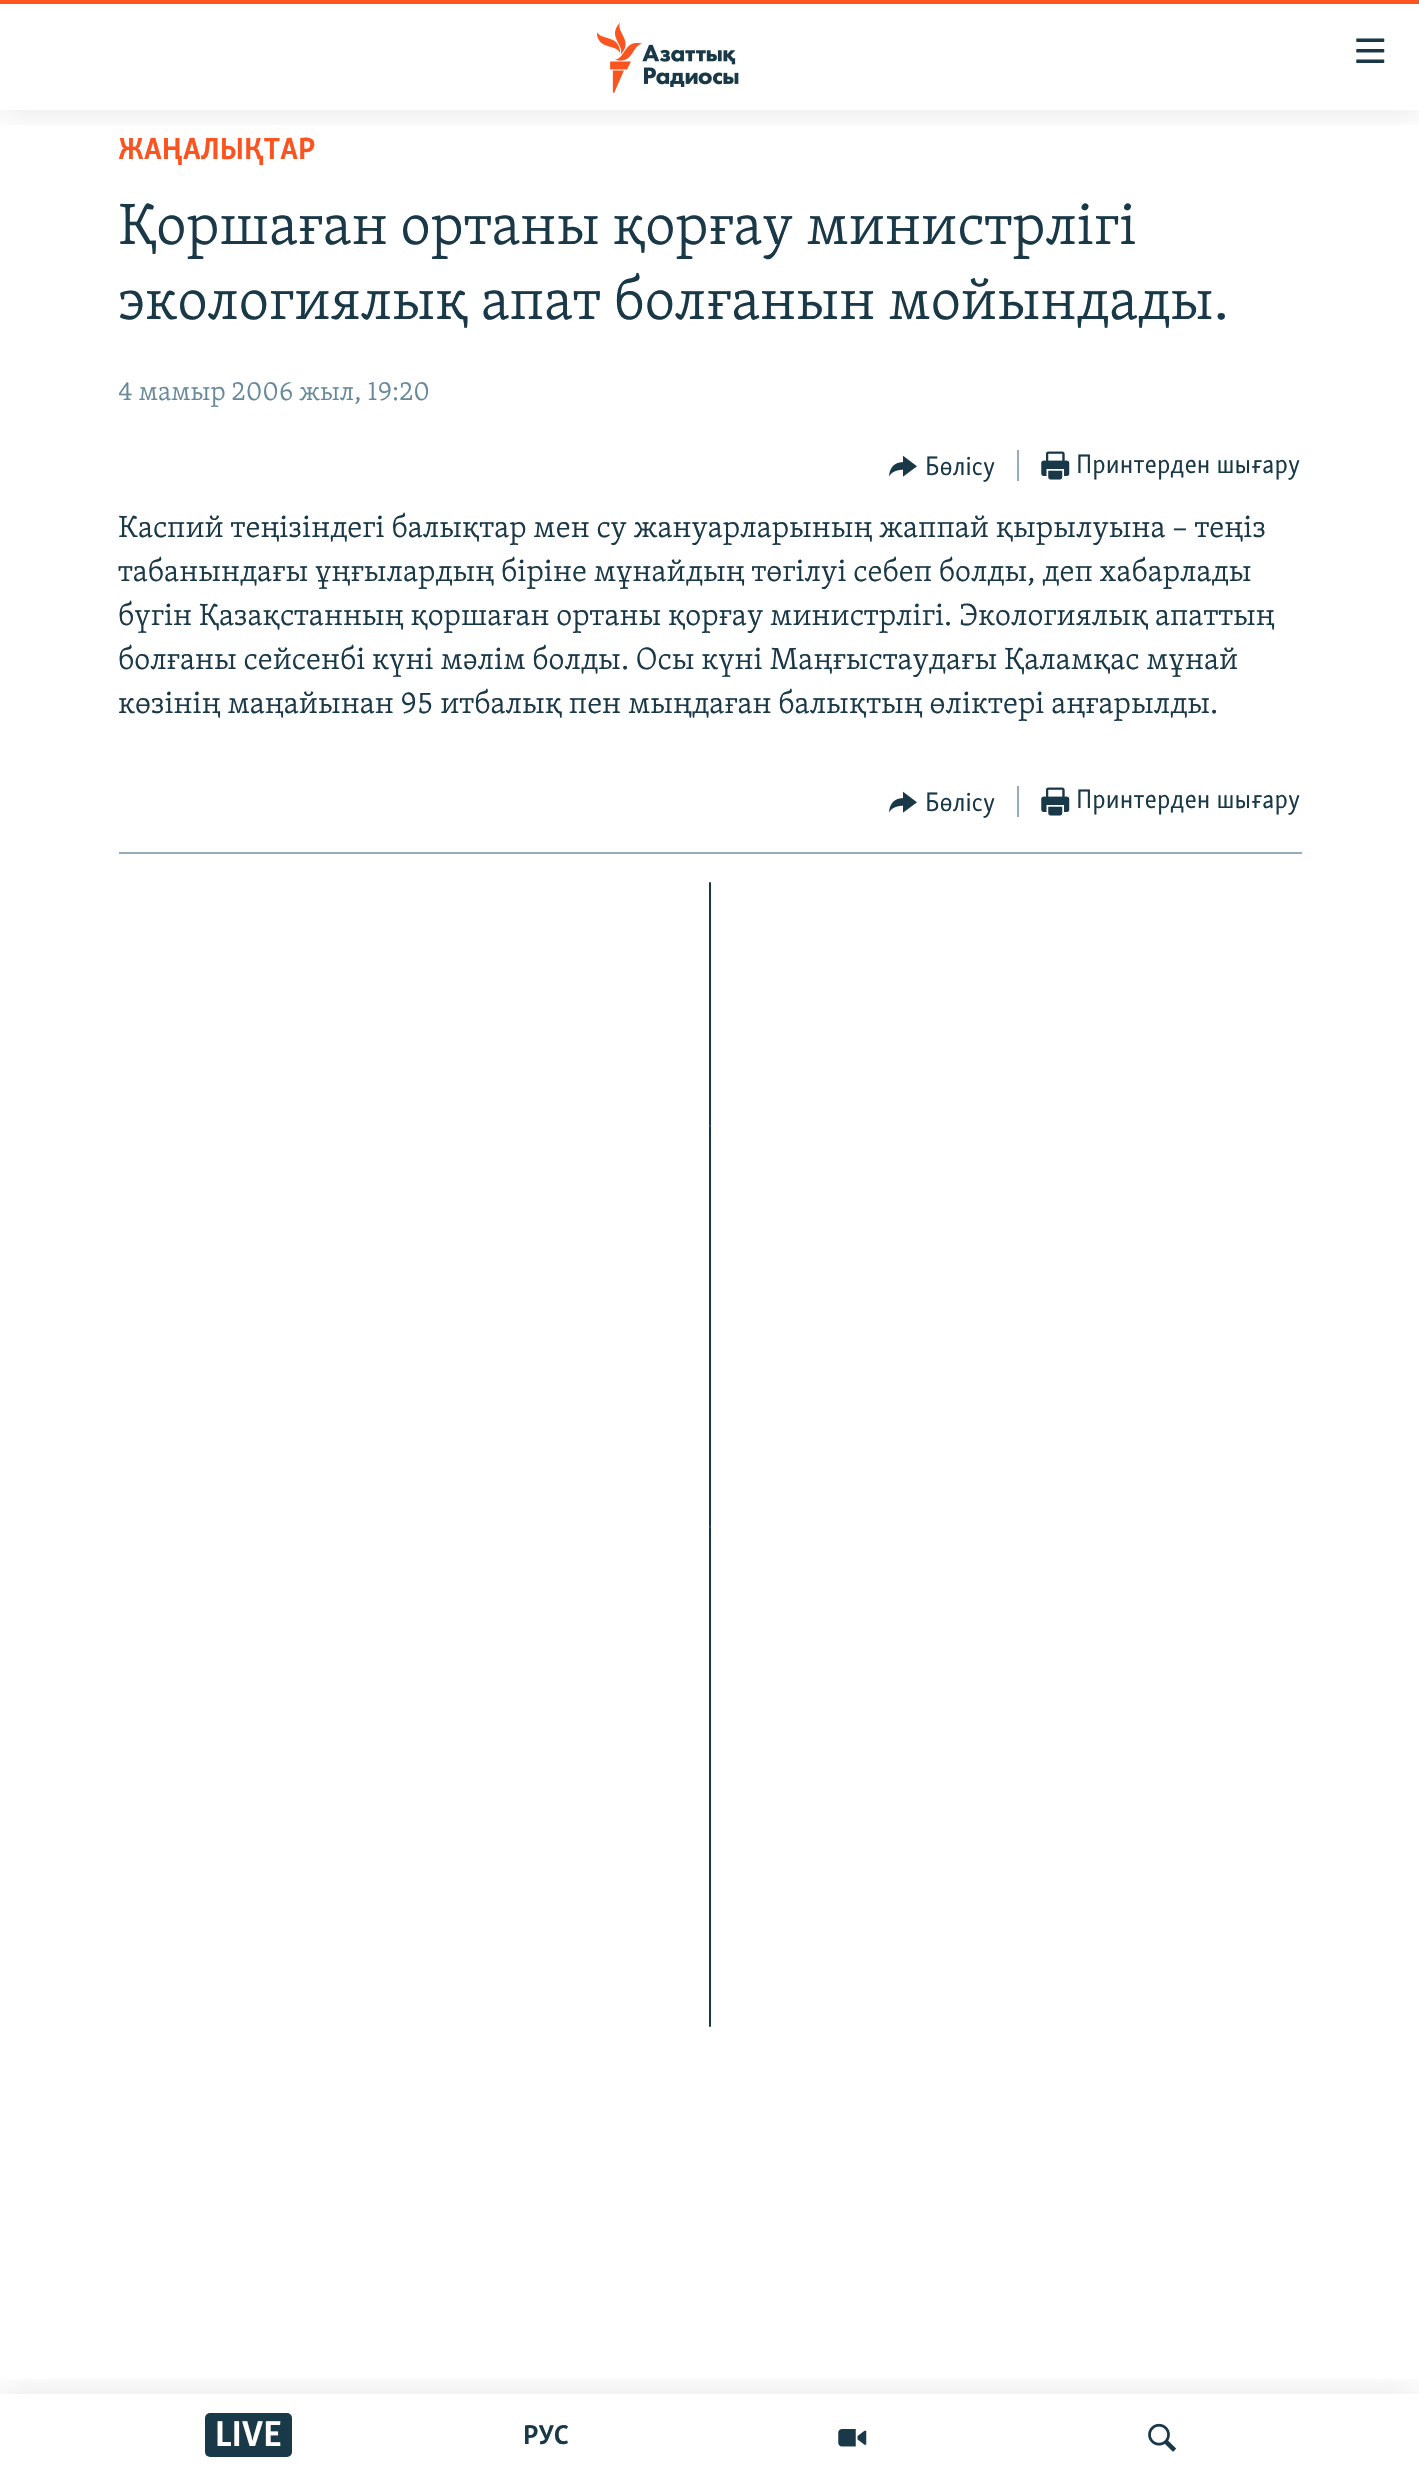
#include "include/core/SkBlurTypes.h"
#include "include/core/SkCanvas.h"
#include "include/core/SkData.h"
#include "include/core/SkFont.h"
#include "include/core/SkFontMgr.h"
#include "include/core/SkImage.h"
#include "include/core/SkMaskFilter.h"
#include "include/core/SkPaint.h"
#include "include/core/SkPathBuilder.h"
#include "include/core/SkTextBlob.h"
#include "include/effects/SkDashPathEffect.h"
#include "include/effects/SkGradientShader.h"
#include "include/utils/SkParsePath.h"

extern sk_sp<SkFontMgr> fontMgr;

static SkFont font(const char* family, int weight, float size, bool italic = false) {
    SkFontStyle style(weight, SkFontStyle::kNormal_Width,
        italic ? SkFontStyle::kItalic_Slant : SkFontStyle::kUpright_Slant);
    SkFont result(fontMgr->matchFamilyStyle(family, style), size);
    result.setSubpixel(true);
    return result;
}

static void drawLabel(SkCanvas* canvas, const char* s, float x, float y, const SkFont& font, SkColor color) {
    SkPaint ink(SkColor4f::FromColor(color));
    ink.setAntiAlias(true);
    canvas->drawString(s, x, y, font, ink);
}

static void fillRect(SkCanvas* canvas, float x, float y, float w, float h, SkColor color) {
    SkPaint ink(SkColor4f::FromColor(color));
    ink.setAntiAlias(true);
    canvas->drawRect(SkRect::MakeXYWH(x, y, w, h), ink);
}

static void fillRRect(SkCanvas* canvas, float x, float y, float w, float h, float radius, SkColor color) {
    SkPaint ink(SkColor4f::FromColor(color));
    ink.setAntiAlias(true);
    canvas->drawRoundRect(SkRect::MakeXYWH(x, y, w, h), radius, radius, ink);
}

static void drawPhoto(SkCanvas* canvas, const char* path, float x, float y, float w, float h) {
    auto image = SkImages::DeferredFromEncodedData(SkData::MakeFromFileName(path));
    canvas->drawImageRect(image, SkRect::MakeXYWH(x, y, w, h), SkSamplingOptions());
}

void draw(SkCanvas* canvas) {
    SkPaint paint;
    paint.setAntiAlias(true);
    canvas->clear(0xFFFFFFFF);
    SkFont font1 = font("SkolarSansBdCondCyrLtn", 700, 31.5f);
    drawLabel(canvas, "ЖАҢАЛЫҚТАР", 118, 159, font1, 0xFFFA5420);
    SkFont font2 = font("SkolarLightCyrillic", 300, 59.8f);
    drawLabel(canvas, "Қоршаған ортаны қорғау министрлігі", 118, 244, font2, 0xFF1A3948);
    drawLabel(canvas, "экологиялық апат болғанын мойындады.", 118, 319, font2, 0xFF1A3948);
    SkFont font3 = font("SkolarLightCyrillic", 300, 27.5f);
    drawLabel(canvas, "4 мамыр 2006 жыл, 19:20", 118, 400, font3, 0xFF678A9B);
    drawPhoto(canvas, "assets/img1.png", 889, 455, 28, 22);
    SkFont font4 = font("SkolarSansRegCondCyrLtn", 400, 27.5f);
    drawLabel(canvas, "Бөлісу", 925, 475, font4, 0xFF1A3948);
    fillRect(canvas, 1017, 450, 2, 31, 0xFF95ADB9);
    drawPhoto(canvas, "assets/img2.png", 1041, 451, 29, 29);
    drawLabel(canvas, "Принтерден шығару", 1076, 473, font4, 0xFF1A3948);
    SkFont font5 = font("SkolarLightCyrillic", 300, 31.5f);
    drawLabel(canvas, "Каспий теңізіндегі балықтар мен су жануарларының жаппай қырылуына – теңіз", 118, 537, font5, 0xFF1A3948);
    drawLabel(canvas, "табанындағы ұңғылардың біріне мұнайдың төгілуі себеп болды, деп хабарлады", 118, 581, font5, 0xFF1A3948);
    drawLabel(canvas, "бүгін Қазақстанның қоршаған ортаны қорғау министрлігі. Экологиялық апаттың", 118, 625, font5, 0xFF1A3948);
    drawLabel(canvas, "болғаны сейсенбі күні мәлім болды. Осы күні Маңғыстаудағы Қаламқас мұнай", 118, 669, font5, 0xFF1A3948);
    drawLabel(canvas, "көзінің маңайынан 95 итбалық пен мыңдаған балықтың өліктері аңғарылды.", 118, 713, font5, 0xFF1A3948);
    fillRect(canvas, 119, 852, 1183, 2, 0xFF95ADB9);
    drawPhoto(canvas, "assets/img1.png", 889, 791, 28, 22);
    drawLabel(canvas, "Бөлісу", 925, 811, font4, 0xFF1A3948);
    fillRect(canvas, 1017, 786, 2, 31, 0xFF95ADB9);
    drawPhoto(canvas, "assets/img2.png", 1041, 787, 29, 29);
    drawLabel(canvas, "Принтерден шығару", 1076, 808, font4, 0xFF1A3948);
    fillRRect(canvas, 709, 882, 2, 1145, 1, 0xFF1A3948);
    paint.setColor(0xFF3E4F57);
    canvas->drawCircle(710, 1126, 1, paint);
    canvas->drawCircle(710, 1527, 1, paint);
    canvas->save();
    canvas->clipRect(SkRect::MakeXYWH(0, 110, 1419, 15));
    paint.setColor(0x1A000000);
    paint.setMaskFilter(SkMaskFilter::MakeBlur(kNormal_SkBlurStyle, 17.5f));
    canvas->drawRect(SkRect::MakeXYWH(0, 0, 1419, 110), paint);
    paint.setMaskFilter(nullptr);
    canvas->restore();
    fillRect(canvas, 0, 0, 1419, 4, 0xFFFA5420);
    drawPhoto(canvas, "assets/img3.png", 597, 23, 142, 70);
    drawPhoto(canvas, "assets/img4.png", 1356, 38, 29, 25);
    canvas->save();
    canvas->clipRect(SkRect::MakeXYWH(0, 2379, 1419, 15));
    paint.setMaskFilter(SkMaskFilter::MakeBlur(kNormal_SkBlurStyle, 17.5f));
    canvas->drawRect(SkRect::MakeXYWH(0, 2394, 1419, 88), paint);
    paint.setMaskFilter(nullptr);
    canvas->restore();
    fillRRect(canvas, 205, 2413, 87, 44, 5, 0xFF1A3948);
    SkFont font6 = font("SkolarSansBdCondCyrLtn", 700, 37);
    drawLabel(canvas, "LIVE", 215, 2446, font6, 0xFFFFFFFF);
    SkFont font7 = font("SkolarSansBdCondCyrLtn", 700, 28);
    drawLabel(canvas, "РУС", 523, 2444, font7, 0xFF1A3948);
    drawPhoto(canvas, "assets/img5.png", 838, 2429, 29, 18);
    drawPhoto(canvas, "assets/img6.png", 1148, 2423, 28, 29);
}
